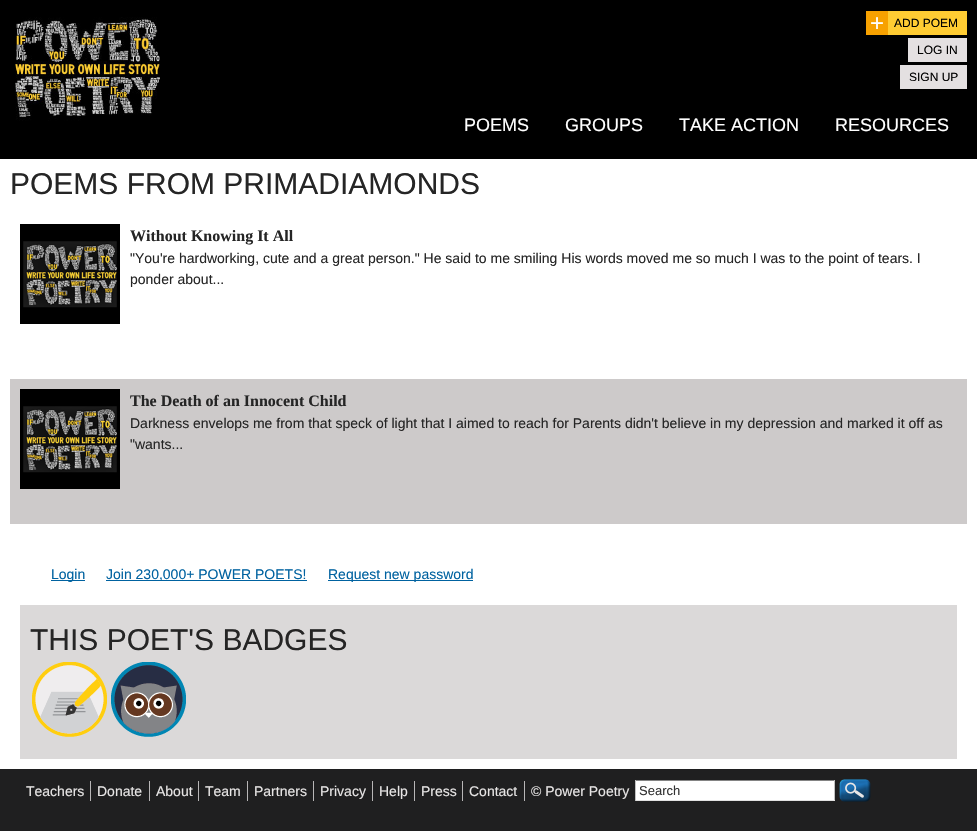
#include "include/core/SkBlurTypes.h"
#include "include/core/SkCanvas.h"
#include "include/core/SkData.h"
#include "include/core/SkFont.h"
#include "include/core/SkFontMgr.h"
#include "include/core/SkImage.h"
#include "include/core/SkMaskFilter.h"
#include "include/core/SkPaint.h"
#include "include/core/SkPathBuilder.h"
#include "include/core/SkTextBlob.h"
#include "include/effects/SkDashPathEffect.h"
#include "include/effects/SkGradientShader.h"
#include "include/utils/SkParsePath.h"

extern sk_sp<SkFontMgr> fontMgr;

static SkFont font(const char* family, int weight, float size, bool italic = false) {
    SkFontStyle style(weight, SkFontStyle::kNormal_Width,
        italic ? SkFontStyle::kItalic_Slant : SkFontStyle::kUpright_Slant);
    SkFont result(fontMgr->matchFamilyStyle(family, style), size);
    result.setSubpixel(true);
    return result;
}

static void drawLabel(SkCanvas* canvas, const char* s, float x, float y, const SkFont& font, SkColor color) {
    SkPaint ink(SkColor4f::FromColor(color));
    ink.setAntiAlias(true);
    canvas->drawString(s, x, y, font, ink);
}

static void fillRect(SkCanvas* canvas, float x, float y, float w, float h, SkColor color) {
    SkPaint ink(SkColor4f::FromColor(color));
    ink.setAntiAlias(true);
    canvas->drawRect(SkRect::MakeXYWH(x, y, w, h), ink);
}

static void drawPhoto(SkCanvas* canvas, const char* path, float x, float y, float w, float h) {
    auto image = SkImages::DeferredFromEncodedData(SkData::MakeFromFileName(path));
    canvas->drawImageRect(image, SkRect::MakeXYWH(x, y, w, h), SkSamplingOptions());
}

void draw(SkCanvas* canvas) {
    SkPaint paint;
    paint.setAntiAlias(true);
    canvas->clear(0xFFFFFFFF);
    fillRect(canvas, 0, 0, 977, 159, 0xFF000000);
    drawPhoto(canvas, "assets/img1.png", 15, 17, 145, 104);
    fillRect(canvas, 888, 11, 79, 24, 0xFFFFCC33);
    fillRect(canvas, 866, 11, 22, 24, 0xFFF7A100);
    SkFont font1 = font("Liberation Sans", 400, 24);
    drawLabel(canvas, "+", 870, 31, font1, 0xFFFFFFFF);
    SkFont font2 = font("Liberation Sans", 400, 12);
    drawLabel(canvas, "ADD POEM", 894, 27, font2, 0xFF000000);
    fillRect(canvas, 908, 38, 59, 24, 0xFFE4E0E1);
    drawLabel(canvas, "LOG IN", 917, 54, font2, 0xFF000000);
    fillRect(canvas, 900, 65, 67, 24, 0xFFE4E0E1);
    drawLabel(canvas, "SIGN UP", 909, 81, font2, 0xFF000000);
    SkFont font3 = font("Liberation Sans", 400, 18);
    drawLabel(canvas, "POEMS", 464, 131, font3, 0xFFFFFFFF);
    drawLabel(canvas, "GROUPS", 565, 131, font3, 0xFFFFFFFF);
    drawLabel(canvas, "TAKE ACTION", 679, 131, font3, 0xFFFFFFFF);
    drawLabel(canvas, "RESOURCES", 835, 131, font3, 0xFFFFFFFF);
    SkFont font4 = font("Liberation Sans", 400, 30);
    drawLabel(canvas, "POEMS FROM PRIMADIAMONDS", 10, 194, font4, 0xFF252525);
    drawPhoto(canvas, "assets/img2.png", 20, 224, 100, 100);
    SkFont font5 = font("Liberation Serif", 700, 16);
    drawLabel(canvas, "Without Knowing It All", 130, 241, font5, 0xFF252525);
    SkFont font6 = font("Liberation Sans", 400, 14);
    drawLabel(canvas, "\"You're hardworking, cute and a great person.\" He said to me smiling His words moved me so much I was to the point of tears. I", 130, 263, font6, 0xFF252525);
    drawLabel(canvas, "ponder about...", 130, 284, font6, 0xFF252525);
    fillRect(canvas, 10, 379, 957, 145, 0xFFCDCACA);
    drawPhoto(canvas, "assets/img2.png", 20, 389, 100, 100);
    drawLabel(canvas, "The Death of an Innocent Child", 130, 406, font5, 0xFF252525);
    drawLabel(canvas, "Darkness envelops me from that speck of light that I aimed to reach for Parents didn't believe in my depression and marked it off as", 130, 428, font6, 0xFF252525);
    drawLabel(canvas, "\"wants...", 130, 449, font6, 0xFF252525);
    fillRect(canvas, 51, 580, 34, 1, 0xFF0062A0);
    drawLabel(canvas, "Login", 51, 579, font6, 0xFF0062A0);
    fillRect(canvas, 106, 580, 201, 1, 0xFF0062A0);
    drawLabel(canvas, "Join 230,000+ POWER POETS!", 106, 579, font6, 0xFF0062A0);
    fillRect(canvas, 328, 580, 145, 1, 0xFF0062A0);
    drawLabel(canvas, "Request new password", 328, 579, font6, 0xFF0062A0);
    fillRect(canvas, 20, 605, 937, 154, 0xFFDBD9D9);
    drawLabel(canvas, "THIS POET'S BADGES", 30, 650, font4, 0xFF252525);
    drawPhoto(canvas, "assets/img3.png", 32, 662, 75, 75);
    drawPhoto(canvas, "assets/img4.png", 111, 662, 75, 75);
    fillRect(canvas, 0, 769, 977, 62, 0xFF1F1F20);
    fillRect(canvas, 90, 781, 1, 20, 0xFFB8B6B7);
    drawLabel(canvas, "Teachers", 26, 796, font6, 0xFFE7E5E5);
    fillRect(canvas, 149, 781, 1, 20, 0xFFB8B6B7);
    drawLabel(canvas, "Donate", 97, 796, font6, 0xFFE7E5E5);
    fillRect(canvas, 198, 781, 1, 20, 0xFFB8B6B7);
    drawLabel(canvas, "About", 156, 796, font6, 0xFFE7E5E5);
    fillRect(canvas, 247, 781, 1, 20, 0xFFB8B6B7);
    drawLabel(canvas, "Team", 205, 796, font6, 0xFFE7E5E5);
    fillRect(canvas, 313, 781, 1, 20, 0xFFB8B6B7);
    drawLabel(canvas, "Partners", 254, 796, font6, 0xFFE7E5E5);
    fillRect(canvas, 372, 781, 1, 20, 0xFFB8B6B7);
    drawLabel(canvas, "Privacy", 320, 796, font6, 0xFFE7E5E5);
    fillRect(canvas, 414, 781, 1, 20, 0xFFB8B6B7);
    drawLabel(canvas, "Help", 379, 796, font6, 0xFFE7E5E5);
    fillRect(canvas, 462, 781, 1, 20, 0xFFB8B6B7);
    drawLabel(canvas, "Press", 421, 796, font6, 0xFFE7E5E5);
    fillRect(canvas, 524, 781, 1, 20, 0xFFB8B6B7);
    drawLabel(canvas, "Contact", 469, 796, font6, 0xFFE7E5E5);
    drawLabel(canvas, "© Power Poetry", 531, 796, font6, 0xFFE7E5E5);
    fillRect(canvas, 636, 781, 198, 19, 0xFFFFFFFF);
    fillRect(canvas, 635, 780, 200, 1, 0xFF848484);
    fillRect(canvas, 834, 780, 1, 21, 0xFFC1C1C1);
    fillRect(canvas, 635, 800, 200, 1, 0xFFE1E1E1);
    fillRect(canvas, 635, 780, 1, 21, 0xFFC1C1C1);
    SkFont font7 = font("Liberation Sans", 400, 13);
    drawLabel(canvas, "Search", 639, 795, font7, 0xFF333333);
    drawPhoto(canvas, "assets/img5.png", 839, 779, 32, 23);
}
